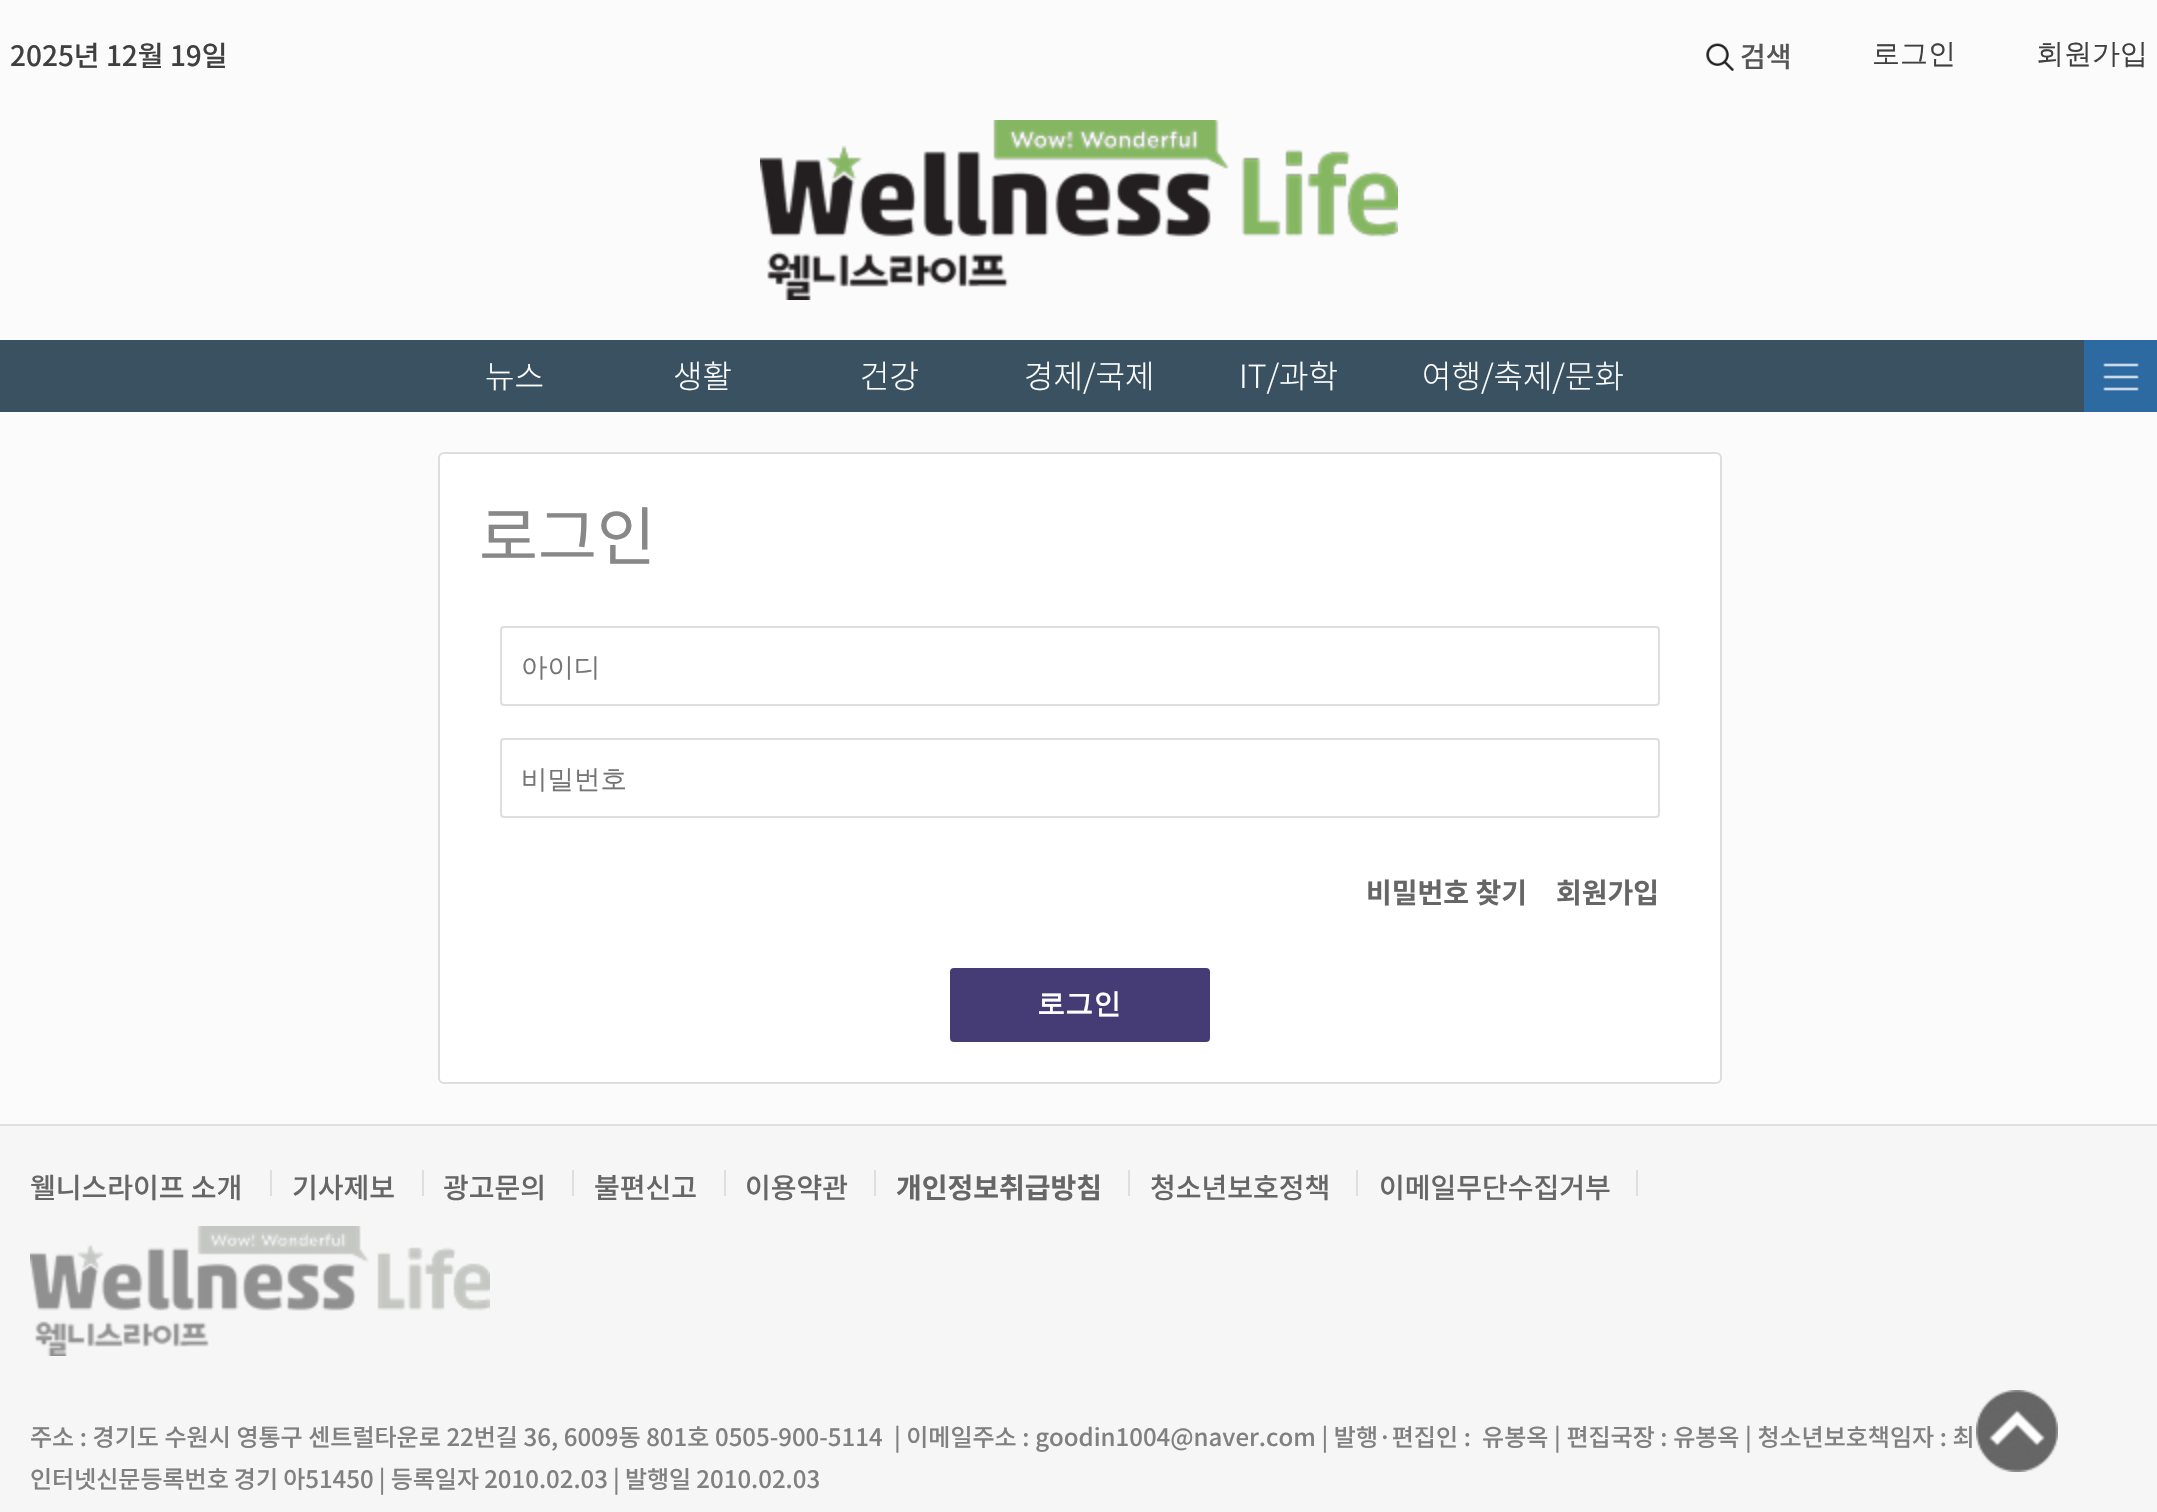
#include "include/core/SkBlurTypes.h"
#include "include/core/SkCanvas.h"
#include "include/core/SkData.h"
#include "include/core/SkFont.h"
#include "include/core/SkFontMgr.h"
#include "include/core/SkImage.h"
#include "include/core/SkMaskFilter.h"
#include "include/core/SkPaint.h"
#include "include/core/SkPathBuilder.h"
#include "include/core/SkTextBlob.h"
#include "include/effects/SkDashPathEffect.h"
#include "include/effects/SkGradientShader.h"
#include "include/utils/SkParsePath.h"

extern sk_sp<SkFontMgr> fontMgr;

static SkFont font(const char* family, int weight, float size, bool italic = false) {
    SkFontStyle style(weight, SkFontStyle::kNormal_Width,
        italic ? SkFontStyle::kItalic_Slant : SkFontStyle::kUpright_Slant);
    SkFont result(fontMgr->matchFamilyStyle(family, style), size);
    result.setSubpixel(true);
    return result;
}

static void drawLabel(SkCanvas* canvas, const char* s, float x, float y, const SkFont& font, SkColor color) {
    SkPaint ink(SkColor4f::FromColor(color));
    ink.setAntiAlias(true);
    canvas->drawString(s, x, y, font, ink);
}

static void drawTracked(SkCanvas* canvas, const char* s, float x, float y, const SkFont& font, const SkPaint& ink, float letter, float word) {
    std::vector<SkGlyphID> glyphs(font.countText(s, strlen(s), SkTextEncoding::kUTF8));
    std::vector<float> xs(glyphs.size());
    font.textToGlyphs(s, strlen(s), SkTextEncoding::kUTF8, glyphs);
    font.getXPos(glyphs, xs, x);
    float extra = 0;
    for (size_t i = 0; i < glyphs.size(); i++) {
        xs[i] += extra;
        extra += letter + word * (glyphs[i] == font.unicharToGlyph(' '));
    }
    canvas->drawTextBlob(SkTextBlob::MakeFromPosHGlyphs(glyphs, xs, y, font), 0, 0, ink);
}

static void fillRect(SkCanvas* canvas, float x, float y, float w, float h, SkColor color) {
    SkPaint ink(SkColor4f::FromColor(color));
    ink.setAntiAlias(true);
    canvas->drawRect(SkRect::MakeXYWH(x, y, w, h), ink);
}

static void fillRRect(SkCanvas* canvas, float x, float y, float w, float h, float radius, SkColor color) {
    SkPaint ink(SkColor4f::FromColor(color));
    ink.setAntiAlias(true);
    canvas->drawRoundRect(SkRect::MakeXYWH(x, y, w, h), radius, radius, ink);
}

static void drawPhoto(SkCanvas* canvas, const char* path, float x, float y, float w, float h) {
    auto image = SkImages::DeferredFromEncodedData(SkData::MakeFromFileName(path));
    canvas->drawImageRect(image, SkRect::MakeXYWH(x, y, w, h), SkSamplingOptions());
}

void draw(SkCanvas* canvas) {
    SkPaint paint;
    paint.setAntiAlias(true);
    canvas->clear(0xFFFBFBFB);
    SkFont font1 = font("Noto Sans KR", 500, 28);
    drawLabel(canvas, "2025년 12월 19일", 10, 66, font1, 0xFF404040);
    drawPhoto(canvas, "assets/img1.png", 1706, 43, 28, 28);
    drawLabel(canvas, "검색", 1740, 67, font1, 0xFF555555);
    SkFont font2 = font("WenQuanYi Zen Hei", 500, 28);
    drawLabel(canvas, "로그인", 1872, 63, font2, 0xFF404040);
    drawLabel(canvas, "회원가입", 2036, 63, font2, 0xFF404040);
    drawPhoto(canvas, "assets/img2.png", 760, 120, 638, 180);
    fillRect(canvas, 0, 340, 2084, 72, 0xFF395160);
    SkFont font3 = font("Noto Sans KR", 300, 32);
    drawLabel(canvas, "뉴스", 485, 388, font3, 0xFFFFFFFF);
    drawLabel(canvas, "생활", 673, 388, font3, 0xFFFFFFFF);
    drawLabel(canvas, "건강", 860, 388, font3, 0xFFFFFFFF);
    drawLabel(canvas, "경제/국제", 1024, 388, font3, 0xFFFFFFFF);
    drawLabel(canvas, "IT/과학", 1239, 388, font3, 0xFFFFFFFF);
    drawLabel(canvas, "여행/축제/문화", 1422, 388, font3, 0xFFFFFFFF);
    fillRect(canvas, 2084, 340, 73, 72, 0xFF2D6AA2);
    drawPhoto(canvas, "assets/img3.png", 2103, 363, 36, 28);
    paint.setColor(0xFFFFFFFF);
    canvas->drawRoundRect(SkRect::MakeXYWH(439, 453, 1282, 630), 5, 5, paint);
    paint.setStroke(true);
    paint.setStrokeWidth(2);
    paint.setColor(0xFFDEDEDE);
    canvas->drawRoundRect(SkRect::MakeXYWH(439, 453, 1282, 630), 5, 5, paint);
    SkFont font4 = font("Noto Sans KR", 400, 64);
    drawLabel(canvas, "로그인", 479, 560, font4, 0xFF888888);
    canvas->drawRoundRect(SkRect::MakeXYWH(501, 627, 1158, 78), 3, 3, paint);
    SkFont font5 = font("WenQuanYi Zen Hei", 500, 26.5f);
    drawLabel(canvas, "아이디", 521, 676, font5, 0xFF757575);
    canvas->drawRoundRect(SkRect::MakeXYWH(501, 739, 1158, 78), 3, 3, paint);
    drawLabel(canvas, "비밀번호", 521, 788, font5, 0xFF757575);
    SkFont font6 = font("Noto Sans KR", 700, 28);
    drawLabel(canvas, "비밀번호 찾기", 1366, 903, font6, 0xFF666666);
    drawLabel(canvas, "회원가입", 1556, 903, font6, 0xFF666666);
    fillRRect(canvas, 950, 968, 260, 74, 4, 0xFF453B75);
    SkFont font7 = font("WenQuanYi Zen Hei", 700, 28);
    drawLabel(canvas, "로그인", 1037, 1013, font7, 0xFFFFFFFF);
    fillRect(canvas, 0, 1126, 2157, 386, 0xFFF6F6F6);
    fillRect(canvas, 0, 1124, 2157, 2, 0xFFE0E0E0);
    drawLabel(canvas, "웰니스라이프 소개", 30, 1198, font1, 0xFF666666);
    fillRect(canvas, 270, 1170, 2, 26, 0xFFDEDEDE);
    drawLabel(canvas, "기사제보", 292, 1198, font1, 0xFF666666);
    fillRect(canvas, 422, 1170, 2, 26, 0xFFDEDEDE);
    drawLabel(canvas, "광고문의", 443, 1198, font1, 0xFF666666);
    fillRect(canvas, 572, 1170, 2, 26, 0xFFDEDEDE);
    drawLabel(canvas, "불편신고", 594, 1198, font1, 0xFF666666);
    fillRect(canvas, 724, 1170, 2, 26, 0xFFDEDEDE);
    drawLabel(canvas, "이용약관", 745, 1198, font1, 0xFF666666);
    fillRect(canvas, 874, 1170, 2, 26, 0xFFDEDEDE);
    drawLabel(canvas, "개인정보취급방침", 896, 1198, font6, 0xFF666666);
    fillRect(canvas, 1128, 1170, 2, 26, 0xFFDEDEDE);
    drawLabel(canvas, "청소년보호정책", 1150, 1198, font1, 0xFF666666);
    fillRect(canvas, 1356, 1170, 2, 26, 0xFFDEDEDE);
    drawLabel(canvas, "이메일무단수집거부", 1379, 1198, font1, 0xFF666666);
    fillRect(canvas, 1636, 1170, 2, 26, 0xFFDEDEDE);
    drawPhoto(canvas, "assets/img4.png", 30, 1226, 460, 130);
    SkFont font8 = font("Noto Sans KR", 500, 24);
    paint.setStroke(false);
    paint.setColor(0xFF808080);
    drawTracked(canvas, "주소 : 경기도 수원시 영통구 센트럴타운로 22번길 36, 6009동 801호 0505-900-5114  | 이메일주소 : goodin1004@naver.com | 발행·편집인 :  유봉옥 | 편집국장 : 유봉옥 | 청소년보호책임자 : 최", 30, 1446, font8, paint, 0, 0.25f);
    drawTracked(canvas, "인터넷신문등록번호 경기 아51450 | 등록일자 2010.02.03 | 발행일 2010.02.03", 30, 1488, font8, paint, 0, -0.25f);
    drawPhoto(canvas, "assets/img5.png", 1976, 1390, 82, 82);
}
